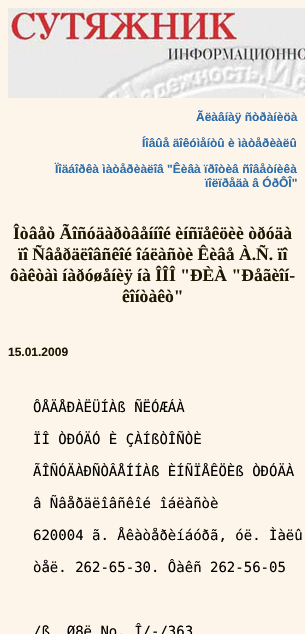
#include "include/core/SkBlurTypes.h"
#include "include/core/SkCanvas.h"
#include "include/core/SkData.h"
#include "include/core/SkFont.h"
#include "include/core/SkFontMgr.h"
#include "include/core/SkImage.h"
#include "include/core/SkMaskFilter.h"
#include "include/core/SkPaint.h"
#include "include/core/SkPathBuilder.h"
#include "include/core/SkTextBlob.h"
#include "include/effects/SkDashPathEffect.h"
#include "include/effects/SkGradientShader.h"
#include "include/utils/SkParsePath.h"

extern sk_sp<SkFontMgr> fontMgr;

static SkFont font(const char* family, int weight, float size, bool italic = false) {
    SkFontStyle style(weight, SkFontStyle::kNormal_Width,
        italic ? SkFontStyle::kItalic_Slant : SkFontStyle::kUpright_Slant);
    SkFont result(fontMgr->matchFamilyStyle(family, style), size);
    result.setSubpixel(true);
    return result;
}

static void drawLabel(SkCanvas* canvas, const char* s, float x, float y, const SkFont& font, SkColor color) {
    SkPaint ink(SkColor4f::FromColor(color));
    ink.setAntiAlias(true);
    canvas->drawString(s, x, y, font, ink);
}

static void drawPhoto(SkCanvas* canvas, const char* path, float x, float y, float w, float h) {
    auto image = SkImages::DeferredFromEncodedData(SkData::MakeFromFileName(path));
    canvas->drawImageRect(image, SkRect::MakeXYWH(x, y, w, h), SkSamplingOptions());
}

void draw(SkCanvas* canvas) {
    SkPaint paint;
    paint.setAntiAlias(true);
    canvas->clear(0xFFFEF5EA);
    drawPhoto(canvas, "assets/img1.png", 8, 8, 297, 90);
    SkFont font1 = font("Liberation Sans", 700, 12);
    drawLabel(canvas, "Ãëàâíàÿ ñòðàíèöà", 196, 121, font1, 0xFF2B6CAA);
    drawLabel(canvas, "Íîâûå äîêóìåíòû è ìàòåðèàëû", 142, 147, font1, 0xFF2B6CAA);
    drawLabel(canvas, "Ïîäáîðêà ìàòåðèàëîâ \"Êèâà ïðîòèâ ñîâåòíèêà", 55, 173, font1, 0xFF2B6CAA);
    drawLabel(canvas, "ïîëïðåäà â ÓðÔÎ\"", 205, 187, font1, 0xFF2B6CAA);
    SkFont font2 = font("Liberation Serif", 700, 17.6f);
    drawLabel(canvas, "Îòâåò Ãîñóäàðòâåííîé èíñïåêöèè òðóäà", 13, 239, font2, 0xFF1D1601);
    drawLabel(canvas, "ïî Ñâåðäëîâñêîé îáëàñòè Êèâå À.Ñ. ïî", 18, 260, font2, 0xFF1D1601);
    drawLabel(canvas, "ôàêòàì íàðóøåíèÿ íà ÎÎÎ \"ÐÈÀ \"Ðåãèîí-", 10, 281, font2, 0xFF1D1601);
    drawLabel(canvas, "êîíòàêò\"", 122, 302, font2, 0xFF1D1601);
    drawLabel(canvas, "15.01.2009", 8, 356, font1, 0xFF1D1601);
    SkFont font3 = font("DejaVu Sans Mono", 400, 14);
    drawLabel(canvas, "ÔÅÄÅÐÀËÜÍÀß ÑËÓÆÁÀ", 33, 412, font3, 0xFF000000);
    drawLabel(canvas, "ÏÎ ÒÐÓÄÓ È ÇÀÍßÒÎÑÒÈ", 33, 444, font3, 0xFF000000);
    drawLabel(canvas, "ÃÎÑÓÄÀÐÑÒÂÅÍÍÀß ÈÍÑÏÅÊÖÈß ÒÐÓÄÀ", 33, 476, font3, 0xFF000000);
    drawLabel(canvas, "â Ñâåðäëîâñêîé îáëàñòè", 33, 508, font3, 0xFF000000);
    drawLabel(canvas, "620004 ã. Åêàòåðèíáóðã, óë. Ìàëû", 33, 540, font3, 0xFF000000);
    drawLabel(canvas, "òåë. 262-65-30. Ôàêñ 262-56-05", 33, 572, font3, 0xFF000000);
    drawLabel(canvas, "/ß. Ø8ë No. Î/-/363", 33, 636, font3, 0xFF000000);
}
